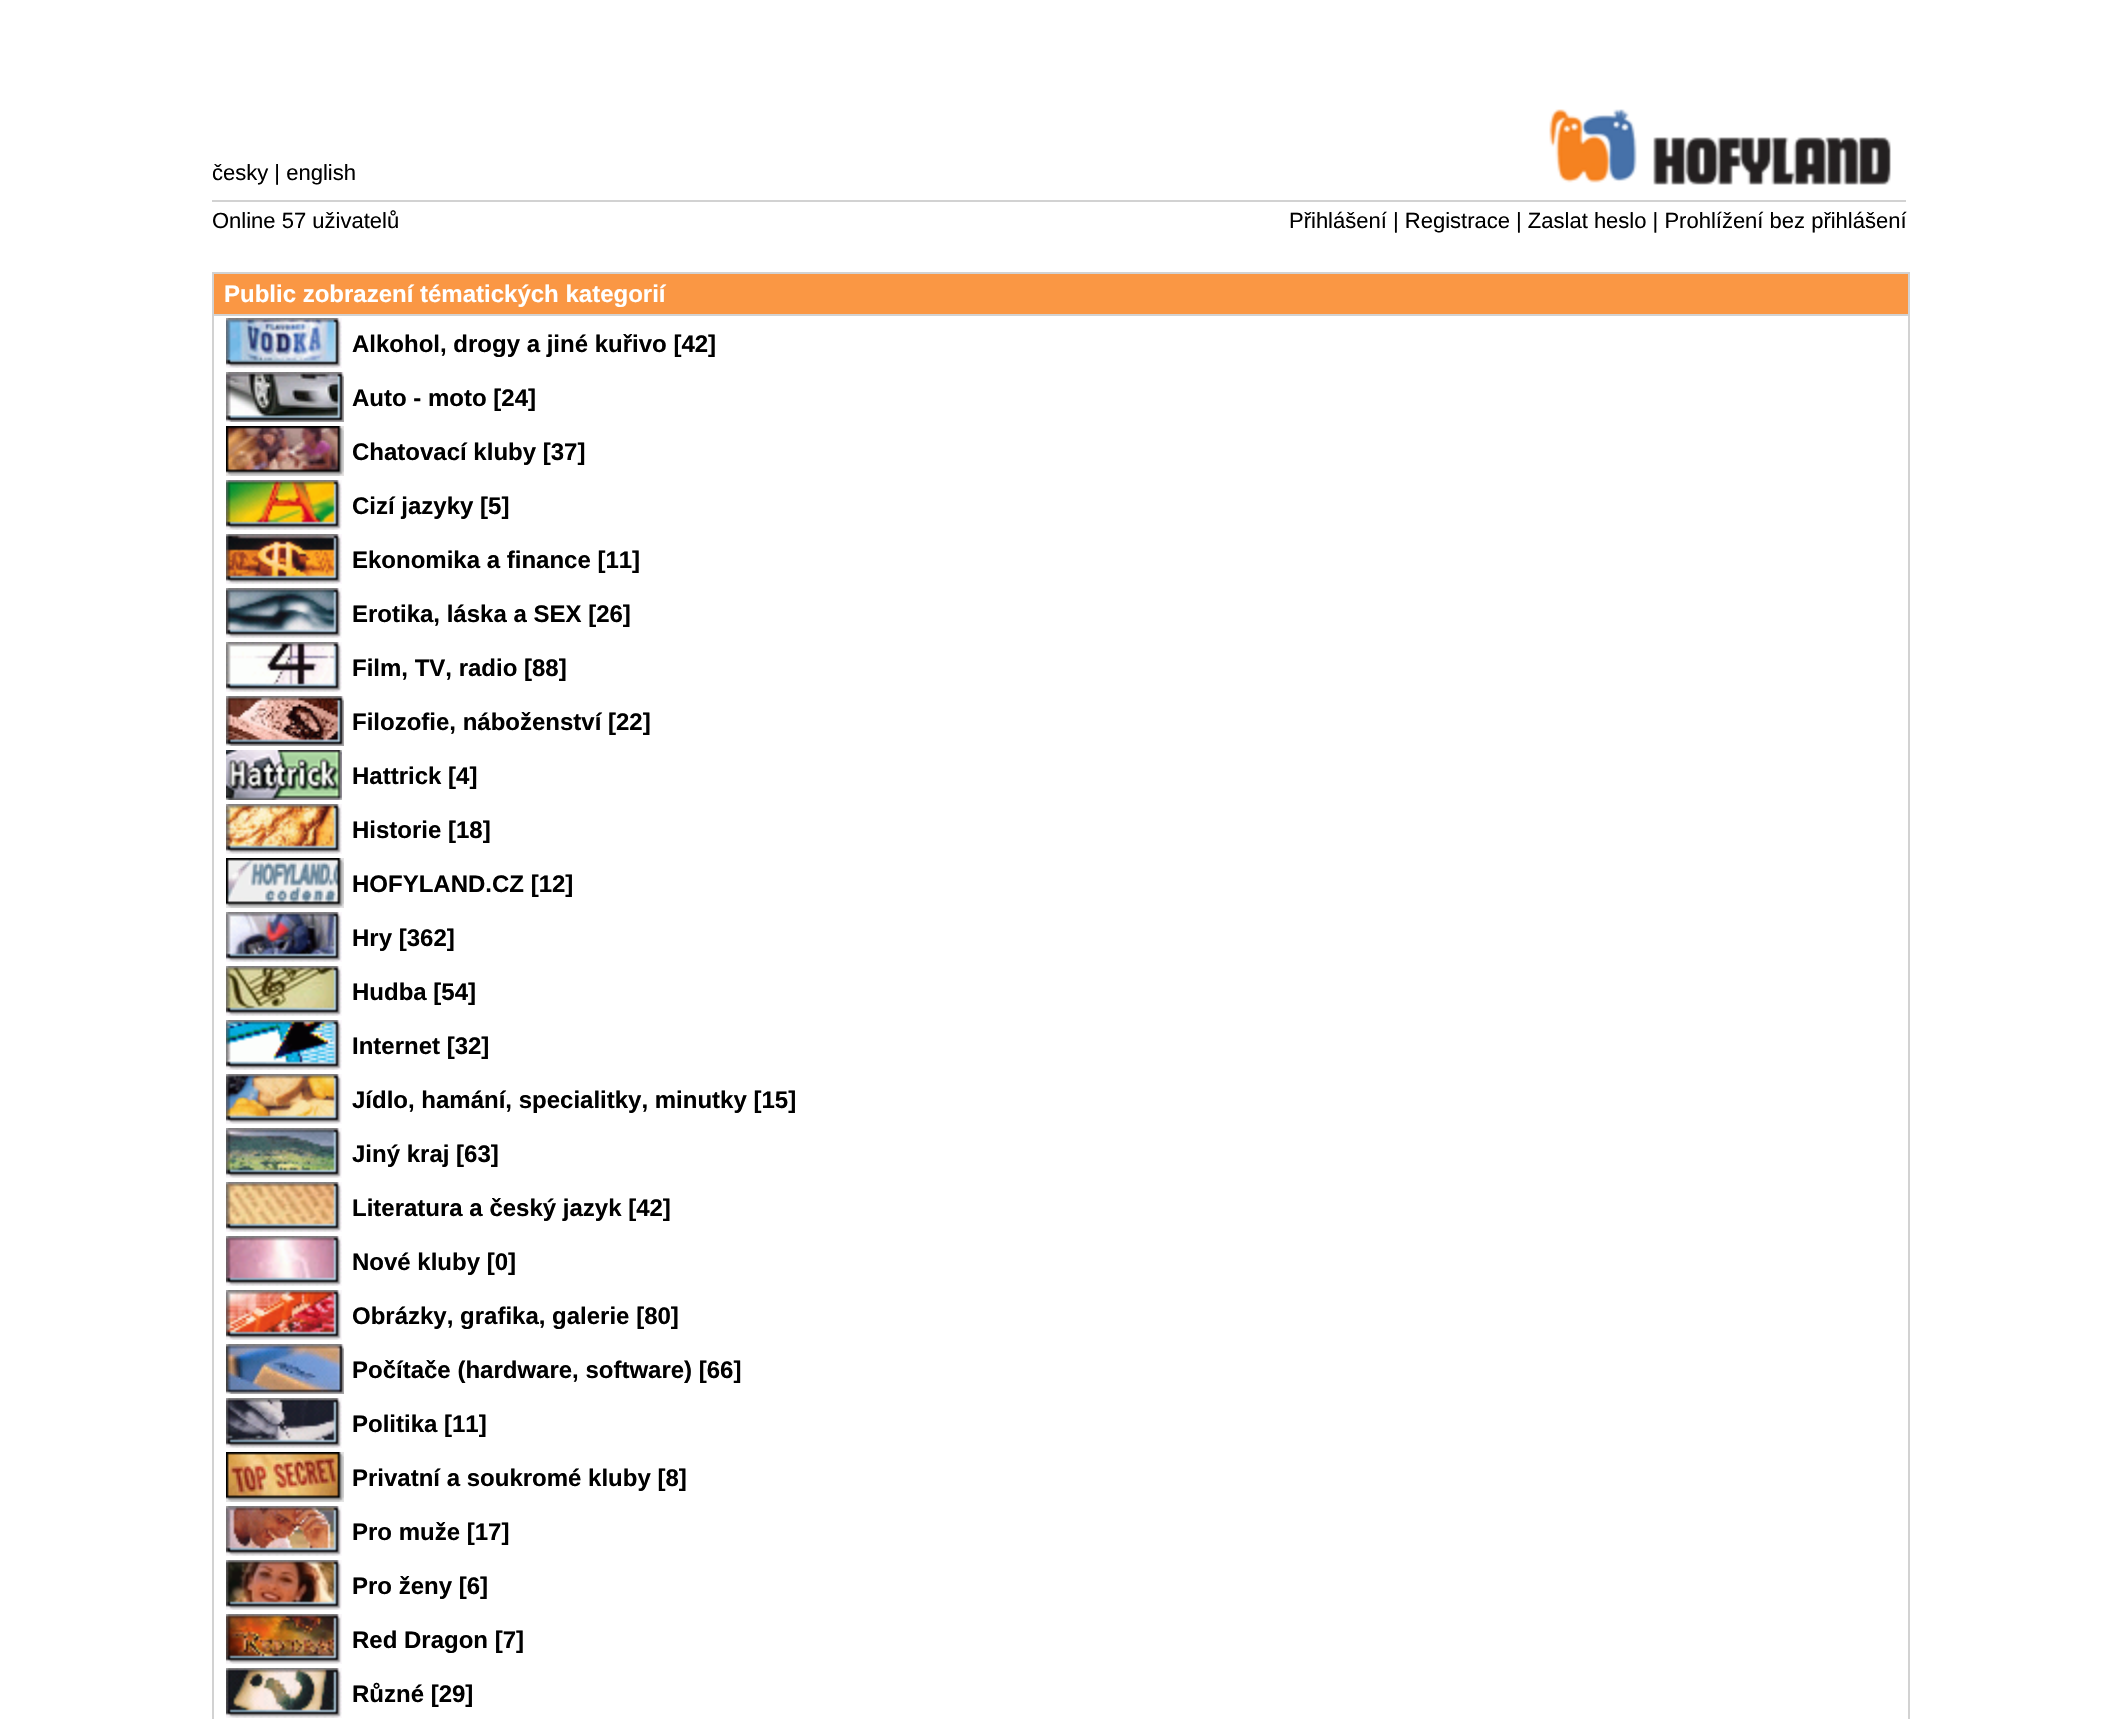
#include "include/core/SkBlurTypes.h"
#include "include/core/SkCanvas.h"
#include "include/core/SkData.h"
#include "include/core/SkFont.h"
#include "include/core/SkFontMgr.h"
#include "include/core/SkImage.h"
#include "include/core/SkMaskFilter.h"
#include "include/core/SkPaint.h"
#include "include/core/SkPathBuilder.h"
#include "include/core/SkTextBlob.h"
#include "include/effects/SkDashPathEffect.h"
#include "include/effects/SkGradientShader.h"
#include "include/utils/SkParsePath.h"

extern sk_sp<SkFontMgr> fontMgr;

static SkFont font(const char* family, int weight, float size, bool italic = false) {
    SkFontStyle style(weight, SkFontStyle::kNormal_Width,
        italic ? SkFontStyle::kItalic_Slant : SkFontStyle::kUpright_Slant);
    SkFont result(fontMgr->matchFamilyStyle(family, style), size);
    result.setSubpixel(true);
    return result;
}

static void drawLabel(SkCanvas* canvas, const char* s, float x, float y, const SkFont& font, SkColor color) {
    SkPaint ink(SkColor4f::FromColor(color));
    ink.setAntiAlias(true);
    canvas->drawString(s, x, y, font, ink);
}

static void fillRect(SkCanvas* canvas, float x, float y, float w, float h, SkColor color) {
    SkPaint ink(SkColor4f::FromColor(color));
    ink.setAntiAlias(true);
    canvas->drawRect(SkRect::MakeXYWH(x, y, w, h), ink);
}

static void drawPhoto(SkCanvas* canvas, const char* path, float x, float y, float w, float h) {
    auto image = SkImages::DeferredFromEncodedData(SkData::MakeFromFileName(path));
    canvas->drawImageRect(image, SkRect::MakeXYWH(x, y, w, h), SkSamplingOptions());
}

void draw(SkCanvas* canvas) {
    SkPaint paint;
    paint.setAntiAlias(true);
    canvas->clear(0xFFFFFFFF);
    SkFont font1 = font("Liberation Sans", 400, 22);
    drawLabel(canvas, "česky | english", 212, 180, font1, 0xFF000000);
    drawPhoto(canvas, "assets/img1.png", 1549, 109, 342, 76);
    fillRect(canvas, 212, 200, 1694, 2, 0xFFD2D2D2);
    drawLabel(canvas, "Online 57 uživatelů", 212, 228, font1, 0xFF000000);
    drawLabel(canvas, "Přihlášení | Registrace | Zaslat heslo | Prohlížení bez přihlášení", 1289, 228, font1, 0xFF000000);
    paint.setStroke(true);
    paint.setStrokeWidth(2);
    paint.setColor(0xFFD2D2D2);
    canvas->drawRect(SkRect::MakeXYWH(213, 273, 1696, 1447), paint);
    fillRect(canvas, 214, 274, 1694, 40, 0xFFFA9744);
    fillRect(canvas, 214, 314, 1694, 2, 0xFFD2D2D2);
    SkFont font2 = font("Liberation Sans", 700, 24);
    drawLabel(canvas, "Public zobrazení tématických kategorií", 224, 302, font2, 0xFFFFFFFF);
    drawPhoto(canvas, "assets/img2.png", 226, 318, 116, 50);
    drawLabel(canvas, "Alkohol, drogy a jiné kuřivo [42]", 352, 352, font2, 0xFF000000);
    drawPhoto(canvas, "assets/img3.png", 226, 372, 118, 50);
    drawLabel(canvas, "Auto - moto [24]", 352, 406, font2, 0xFF000000);
    drawPhoto(canvas, "assets/img4.png", 226, 426, 118, 50);
    drawLabel(canvas, "Chatovací kluby [37]", 352, 460, font2, 0xFF000000);
    drawPhoto(canvas, "assets/img5.png", 226, 480, 116, 50);
    drawLabel(canvas, "Cizí jazyky [5]", 352, 514, font2, 0xFF000000);
    drawPhoto(canvas, "assets/img6.png", 226, 534, 116, 50);
    drawLabel(canvas, "Ekonomika a finance [11]", 352, 568, font2, 0xFF000000);
    drawPhoto(canvas, "assets/img7.png", 226, 588, 116, 50);
    drawLabel(canvas, "Erotika, láska a SEX [26]", 352, 622, font2, 0xFF000000);
    drawPhoto(canvas, "assets/img8.png", 226, 642, 116, 50);
    drawLabel(canvas, "Film, TV, radio [88]", 352, 676, font2, 0xFF000000);
    drawPhoto(canvas, "assets/img9.png", 226, 696, 118, 50);
    drawLabel(canvas, "Filozofie, náboženství [22]", 352, 730, font2, 0xFF000000);
    drawPhoto(canvas, "assets/img10.png", 226, 750, 116, 50);
    drawLabel(canvas, "Hattrick [4]", 352, 784, font2, 0xFF000000);
    drawPhoto(canvas, "assets/img11.png", 226, 804, 116, 50);
    drawLabel(canvas, "Historie [18]", 352, 838, font2, 0xFF000000);
    drawPhoto(canvas, "assets/img12.png", 226, 858, 118, 50);
    drawLabel(canvas, "HOFYLAND.CZ [12]", 352, 892, font2, 0xFF000000);
    drawPhoto(canvas, "assets/img13.png", 226, 912, 116, 50);
    drawLabel(canvas, "Hry [362]", 352, 946, font2, 0xFF000000);
    drawPhoto(canvas, "assets/img14.png", 226, 966, 116, 50);
    drawLabel(canvas, "Hudba [54]", 352, 1000, font2, 0xFF000000);
    drawPhoto(canvas, "assets/img15.png", 226, 1020, 116, 50);
    drawLabel(canvas, "Internet [32]", 352, 1054, font2, 0xFF000000);
    drawPhoto(canvas, "assets/img16.png", 226, 1074, 116, 50);
    drawLabel(canvas, "Jídlo, hamání, specialitky, minutky [15]", 352, 1108, font2, 0xFF000000);
    drawPhoto(canvas, "assets/img17.png", 226, 1128, 116, 50);
    drawLabel(canvas, "Jiný kraj [63]", 352, 1162, font2, 0xFF000000);
    drawPhoto(canvas, "assets/img18.png", 226, 1182, 116, 50);
    drawLabel(canvas, "Literatura a český jazyk [42]", 352, 1216, font2, 0xFF000000);
    drawPhoto(canvas, "assets/img19.png", 226, 1236, 116, 50);
    drawLabel(canvas, "Nové kluby [0]", 352, 1270, font2, 0xFF000000);
    drawPhoto(canvas, "assets/img20.png", 226, 1290, 116, 50);
    drawLabel(canvas, "Obrázky, grafika, galerie [80]", 352, 1324, font2, 0xFF000000);
    drawPhoto(canvas, "assets/img21.png", 226, 1344, 118, 50);
    drawLabel(canvas, "Počítače (hardware, software) [66]", 352, 1378, font2, 0xFF000000);
    drawPhoto(canvas, "assets/img22.png", 226, 1398, 116, 50);
    drawLabel(canvas, "Politika [11]", 352, 1432, font2, 0xFF000000);
    drawPhoto(canvas, "assets/img23.png", 226, 1452, 118, 50);
    drawLabel(canvas, "Privatní a soukromé kluby [8]", 352, 1486, font2, 0xFF000000);
    drawPhoto(canvas, "assets/img24.png", 226, 1506, 116, 50);
    drawLabel(canvas, "Pro muže [17]", 352, 1540, font2, 0xFF000000);
    drawPhoto(canvas, "assets/img25.png", 226, 1560, 116, 50);
    drawLabel(canvas, "Pro ženy [6]", 352, 1594, font2, 0xFF000000);
    drawPhoto(canvas, "assets/img26.png", 226, 1614, 116, 50);
    drawLabel(canvas, "Red Dragon [7]", 352, 1648, font2, 0xFF000000);
    drawPhoto(canvas, "assets/img27.png", 226, 1668, 116, 50);
    drawLabel(canvas, "Různé [29]", 352, 1702, font2, 0xFF000000);
}
